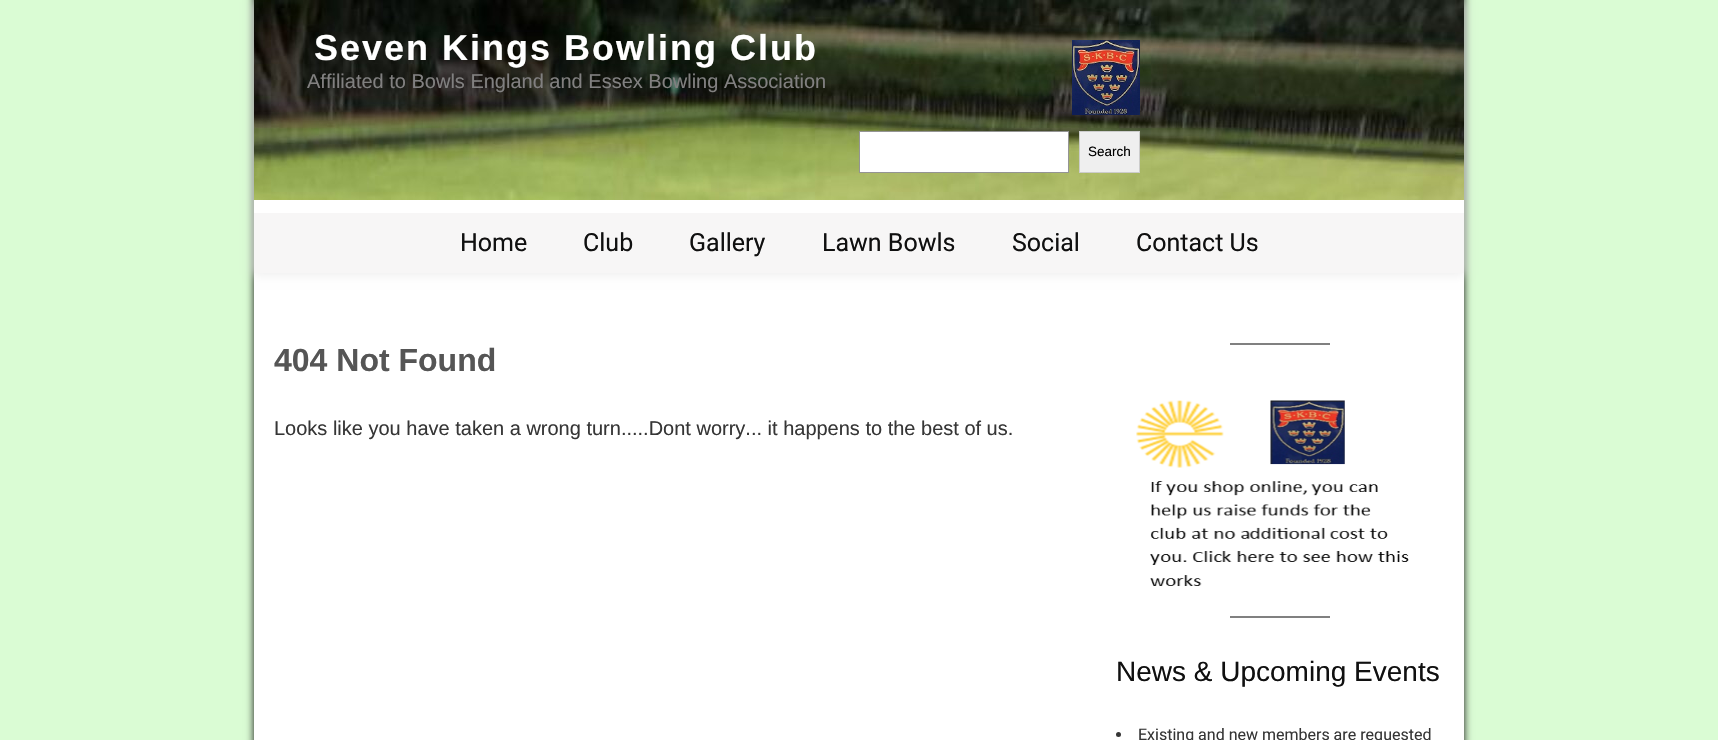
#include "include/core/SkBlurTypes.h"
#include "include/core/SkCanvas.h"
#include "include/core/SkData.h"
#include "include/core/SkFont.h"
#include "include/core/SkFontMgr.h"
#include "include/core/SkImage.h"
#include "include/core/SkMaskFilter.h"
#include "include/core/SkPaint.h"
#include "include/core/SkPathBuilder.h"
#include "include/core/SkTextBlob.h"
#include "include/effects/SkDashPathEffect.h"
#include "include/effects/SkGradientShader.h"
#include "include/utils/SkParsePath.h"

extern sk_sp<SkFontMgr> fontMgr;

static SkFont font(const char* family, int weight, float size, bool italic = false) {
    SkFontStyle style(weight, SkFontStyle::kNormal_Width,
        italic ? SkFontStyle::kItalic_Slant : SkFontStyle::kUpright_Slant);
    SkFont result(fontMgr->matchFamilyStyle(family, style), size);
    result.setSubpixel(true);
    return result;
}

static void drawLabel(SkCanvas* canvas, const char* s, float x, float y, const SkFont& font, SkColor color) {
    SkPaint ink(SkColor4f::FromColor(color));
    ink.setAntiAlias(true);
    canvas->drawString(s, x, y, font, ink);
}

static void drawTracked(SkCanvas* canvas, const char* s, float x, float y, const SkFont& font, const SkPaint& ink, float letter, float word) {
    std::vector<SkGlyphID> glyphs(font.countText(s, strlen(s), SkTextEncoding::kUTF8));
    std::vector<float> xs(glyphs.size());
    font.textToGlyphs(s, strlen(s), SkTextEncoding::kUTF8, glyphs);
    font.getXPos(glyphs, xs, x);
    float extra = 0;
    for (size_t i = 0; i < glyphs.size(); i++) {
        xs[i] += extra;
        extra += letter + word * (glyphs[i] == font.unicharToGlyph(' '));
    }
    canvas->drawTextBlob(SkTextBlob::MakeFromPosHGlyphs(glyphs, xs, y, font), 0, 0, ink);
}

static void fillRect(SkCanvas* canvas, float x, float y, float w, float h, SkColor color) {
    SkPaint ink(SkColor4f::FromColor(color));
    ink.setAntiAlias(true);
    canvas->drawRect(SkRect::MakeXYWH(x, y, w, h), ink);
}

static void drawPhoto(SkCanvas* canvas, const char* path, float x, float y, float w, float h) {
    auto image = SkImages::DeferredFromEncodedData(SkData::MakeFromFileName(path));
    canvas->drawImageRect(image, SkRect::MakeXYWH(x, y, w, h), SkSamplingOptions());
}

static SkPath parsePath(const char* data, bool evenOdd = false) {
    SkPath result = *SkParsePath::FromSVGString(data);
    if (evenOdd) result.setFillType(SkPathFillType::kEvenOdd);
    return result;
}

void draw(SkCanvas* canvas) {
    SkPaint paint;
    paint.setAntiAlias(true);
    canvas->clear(0xFFDAFCD4);
    paint.setColor(0xFF111111);
    paint.setMaskFilter(SkMaskFilter::MakeBlur(kNormal_SkBlurStyle, 4));
    canvas->drawRect(SkRect::MakeXYWH(254, -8, 1210, 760), paint);
    paint.setMaskFilter(nullptr);
    fillRect(canvas, 254, 200, 1210, 540, 0xFFFFFFFF);
    canvas->save();
    canvas->clipPath(parsePath("M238 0H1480V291H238ZM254 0H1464V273H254Z", true), true);
    paint.setColor(0xFFEEEEEE);
    paint.setMaskFilter(SkMaskFilter::MakeBlur(kNormal_SkBlurStyle, 5));
    canvas->drawRect(SkRect::MakeXYWH(254, 2, 1210, 273), paint);
    paint.setMaskFilter(nullptr);
    canvas->restore();
    drawPhoto(canvas, "assets/img1.png", 254, 0, 1210, 200);
    SkFont font1 = font("Liberation Sans", 700, 36);
    paint.setColor(0xFFFFFFFF);
    drawTracked(canvas, "Seven Kings Bowling Club", 314, 60, font1, paint, 2, 0);
    SkFont font2 = font("Liberation Sans", 400, 20);
    drawLabel(canvas, "Affiliated to Bowls England and Essex Bowling Association", 307, 88, font2, 0xFF818080);
    drawPhoto(canvas, "assets/img2.png", 1072, 40, 68, 75);
    canvas->drawRect(SkRect::MakeXYWH(859.5f, 131.5f, 209, 41), paint);
    paint.setStroke(true);
    paint.setStrokeWidth(1);
    paint.setColor(0xFF949494);
    canvas->drawRect(SkRect::MakeXYWH(859.5f, 131.5f, 209, 41), paint);
    paint.setStroke(false);
    paint.setColor(0xFFEFEFEF);
    canvas->drawRect(SkRect::MakeXYWH(1079.5f, 131.5f, 60, 41), paint);
    paint.setStroke(true);
    paint.setColor(0xFFCCCCCC);
    canvas->drawRect(SkRect::MakeXYWH(1079.5f, 131.5f, 60, 41), paint);
    SkFont font3 = font("Liberation Sans", 400, 13.5f);
    drawLabel(canvas, "Search", 1088, 156, font3, 0xFF000000);
    fillRect(canvas, 254, 213, 1210, 60, 0xFFF7F6F6);
    SkFont font4 = font("Roboto", 400, 25);
    drawLabel(canvas, "Home", 460, 251, font4, 0xFF101010);
    drawLabel(canvas, "Club", 583, 251, font4, 0xFF101010);
    drawLabel(canvas, "Gallery", 689, 251, font4, 0xFF101010);
    drawLabel(canvas, "Lawn Bowls", 822, 251, font4, 0xFF101010);
    drawLabel(canvas, "Social", 1012, 251, font4, 0xFF101010);
    drawLabel(canvas, "Contact Us", 1136, 251, font4, 0xFF101010);
    SkFont font5 = font("Liberation Sans", 700, 32);
    drawLabel(canvas, "404 Not Found", 274, 371, font5, 0xFF555555);
    drawLabel(canvas, "Looks like you have taken a wrong turn.....Dont worry... it happens to the best of us.", 274, 435, font2, 0xFF363636);
    fillRect(canvas, 1230, 343, 100, 2, 0xFF808080);
    drawPhoto(canvas, "assets/img3.png", 1136, 400, 273, 186);
    fillRect(canvas, 1230, 616, 100, 2, 0xFF808080);
    SkFont font6 = font("Liberation Sans", 400, 28);
    drawLabel(canvas, "News & Upcoming Events", 1116, 681, font6, 0xFF101010);
    paint.setStroke(false);
    paint.setColor(0xFF363636);
    canvas->drawCircle(1118.5f, 734.5f, 2.5f, paint);
    SkFont font7 = font("Roboto", 400, 16);
    drawLabel(canvas, "Existing and new members are requested", 1138, 740, font7, 0xFF363636);
}
